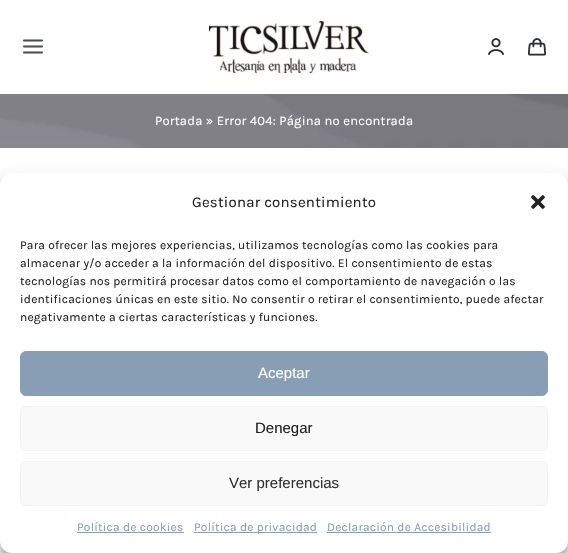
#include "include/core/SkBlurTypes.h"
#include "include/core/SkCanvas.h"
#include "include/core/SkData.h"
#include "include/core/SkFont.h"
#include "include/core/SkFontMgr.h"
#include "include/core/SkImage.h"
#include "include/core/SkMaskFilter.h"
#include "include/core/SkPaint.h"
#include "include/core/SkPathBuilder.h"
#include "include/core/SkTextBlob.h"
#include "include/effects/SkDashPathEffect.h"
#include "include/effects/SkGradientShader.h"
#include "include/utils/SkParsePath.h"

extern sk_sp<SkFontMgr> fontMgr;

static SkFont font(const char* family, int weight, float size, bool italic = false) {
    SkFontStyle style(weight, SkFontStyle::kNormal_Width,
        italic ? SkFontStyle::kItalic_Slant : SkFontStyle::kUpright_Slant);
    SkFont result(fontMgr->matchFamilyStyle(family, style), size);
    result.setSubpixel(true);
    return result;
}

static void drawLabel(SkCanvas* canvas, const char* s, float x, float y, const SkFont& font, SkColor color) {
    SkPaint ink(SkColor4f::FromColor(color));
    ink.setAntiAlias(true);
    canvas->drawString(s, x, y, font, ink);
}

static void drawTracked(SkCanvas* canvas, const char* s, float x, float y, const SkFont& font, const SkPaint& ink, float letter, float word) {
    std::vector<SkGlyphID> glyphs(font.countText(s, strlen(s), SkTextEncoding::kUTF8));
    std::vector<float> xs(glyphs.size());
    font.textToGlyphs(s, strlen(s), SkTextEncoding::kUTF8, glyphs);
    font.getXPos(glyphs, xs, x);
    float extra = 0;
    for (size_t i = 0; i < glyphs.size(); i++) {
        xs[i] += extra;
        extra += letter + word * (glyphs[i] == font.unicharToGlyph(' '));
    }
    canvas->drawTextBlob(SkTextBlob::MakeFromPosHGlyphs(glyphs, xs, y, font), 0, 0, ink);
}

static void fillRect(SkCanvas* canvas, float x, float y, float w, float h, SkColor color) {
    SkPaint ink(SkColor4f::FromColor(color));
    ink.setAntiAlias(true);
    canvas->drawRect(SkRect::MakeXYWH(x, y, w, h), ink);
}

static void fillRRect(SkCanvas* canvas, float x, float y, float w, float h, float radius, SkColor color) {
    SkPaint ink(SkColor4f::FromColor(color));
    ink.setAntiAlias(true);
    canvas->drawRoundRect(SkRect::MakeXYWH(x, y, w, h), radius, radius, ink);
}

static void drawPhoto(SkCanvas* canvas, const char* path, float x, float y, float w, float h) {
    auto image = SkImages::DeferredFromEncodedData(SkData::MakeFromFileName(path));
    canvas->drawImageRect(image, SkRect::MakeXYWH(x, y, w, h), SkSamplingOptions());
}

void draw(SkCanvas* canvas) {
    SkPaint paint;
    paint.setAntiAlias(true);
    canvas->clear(0xFFFFFFFF);
    drawPhoto(canvas, "assets/img1.png", 23, 39, 20, 15);
    drawPhoto(canvas, "assets/img2.png", 209, 21, 160, 52);
    drawPhoto(canvas, "assets/img3.png", 488, 38, 16, 17);
    drawPhoto(canvas, "assets/img4.png", 527, 38, 20, 18);
    drawPhoto(canvas, "assets/img5.png", 0, 94, 568, 54);
    SkFont font1 = font("Karla", 400, 13);
    paint.setColor(0xFFFFFFFF);
    drawTracked(canvas, "Portada » Error 404: Página no encontrada", 155, 125, font1, paint, 0.23f, 0);
    paint.setColor(0x3B000000);
    paint.setMaskFilter(SkMaskFilter::MakeBlur(kNormal_SkBlurStyle, 3));
    canvas->drawRoundRect(SkRect::MakeXYWH(0, 179, 568, 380), 12, 12, paint);
    paint.setMaskFilter(nullptr);
    paint.setColor(0x30000000);
    paint.setMaskFilter(SkMaskFilter::MakeBlur(kNormal_SkBlurStyle, 10));
    canvas->drawRoundRect(SkRect::MakeXYWH(0, 183, 568, 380), 12, 12, paint);
    paint.setMaskFilter(nullptr);
    fillRRect(canvas, 0, 173, 568, 380, 12, 0xFFFFFFFF);
    SkFont font2 = font("Karla", 400, 15);
    paint.setColor(0xFF222222);
    drawTracked(canvas, "Gestionar consentimiento", 192, 207, font2, paint, 0.23f, 0);
    drawPhoto(canvas, "assets/img6.png", 531, 195, 14, 14);
    SkFont font3 = font("Karla", 400, 12);
    drawTracked(canvas, "Para ofrecer las mejores experiencias, utilizamos tecnologías como las cookies para", 20, 249, font3, paint, 0.23f, 0);
    drawTracked(canvas, "almacenar y/o acceder a la información del dispositivo. El consentimiento de estas", 20, 267, font3, paint, 0.23f, 0);
    drawTracked(canvas, "tecnologías nos permitirá procesar datos como el comportamiento de navegación o las", 20, 285, font3, paint, 0.23f, 0);
    drawTracked(canvas, "identificaciones únicas en este sitio. No consentir o retirar el consentimiento, puede afectar", 20, 303, font3, paint, 0.23f, 0);
    drawTracked(canvas, "negativamente a ciertas características y funciones.", 20, 321, font3, paint, 0.23f, 0);
    paint.setColor(0xFF879EB4);
    canvas->drawRoundRect(SkRect::MakeXYWH(20.5f, 351.5f, 527, 44), 5.5f, 5.5f, paint);
    paint.setStroke(true);
    paint.setStrokeWidth(1);
    canvas->drawRoundRect(SkRect::MakeXYWH(20.5f, 351.5f, 527, 44), 5.5f, 5.5f, paint);
    SkFont font4 = font("Liberation Sans", 400, 15);
    drawLabel(canvas, "Aceptar", 258, 378, font4, 0xFFFFFFFF);
    paint.setStroke(false);
    paint.setColor(0xFFF9F9F9);
    canvas->drawRoundRect(SkRect::MakeXYWH(20.5f, 406.5f, 527, 44), 5.5f, 5.5f, paint);
    paint.setStroke(true);
    paint.setColor(0xFFF2F2F2);
    canvas->drawRoundRect(SkRect::MakeXYWH(20.5f, 406.5f, 527, 44), 5.5f, 5.5f, paint);
    drawLabel(canvas, "Denegar", 255, 433, font4, 0xFF222222);
    paint.setStroke(false);
    paint.setColor(0xFFF9F9F9);
    canvas->drawRoundRect(SkRect::MakeXYWH(20.5f, 461.5f, 527, 44), 5.5f, 5.5f, paint);
    paint.setStroke(true);
    paint.setColor(0xFFF2F2F2);
    canvas->drawRoundRect(SkRect::MakeXYWH(20.5f, 461.5f, 527, 44), 5.5f, 5.5f, paint);
    drawLabel(canvas, "Ver preferencias", 229, 488, font4, 0xFF333333);
    paint.setStroke(false);
    paint.setColor(0xFF879EB4);
    drawTracked(canvas, "Política de cookies", 77, 531, font3, paint, 0.23f, 0);
    fillRect(canvas, 77, 532, 107, 1, 0xFF879EB4);
    fillRect(canvas, 194, 532, 123, 1, 0xFF879EB4);
    drawTracked(canvas, "Política de privacidad", 194, 531, font3, paint, 0.23f, 0);
    drawTracked(canvas, "Declaración de Accesibilidad", 327, 531, font3, paint, 0.23f, 0);
    fillRect(canvas, 327, 532, 164, 1, 0xFF879EB4);
}
